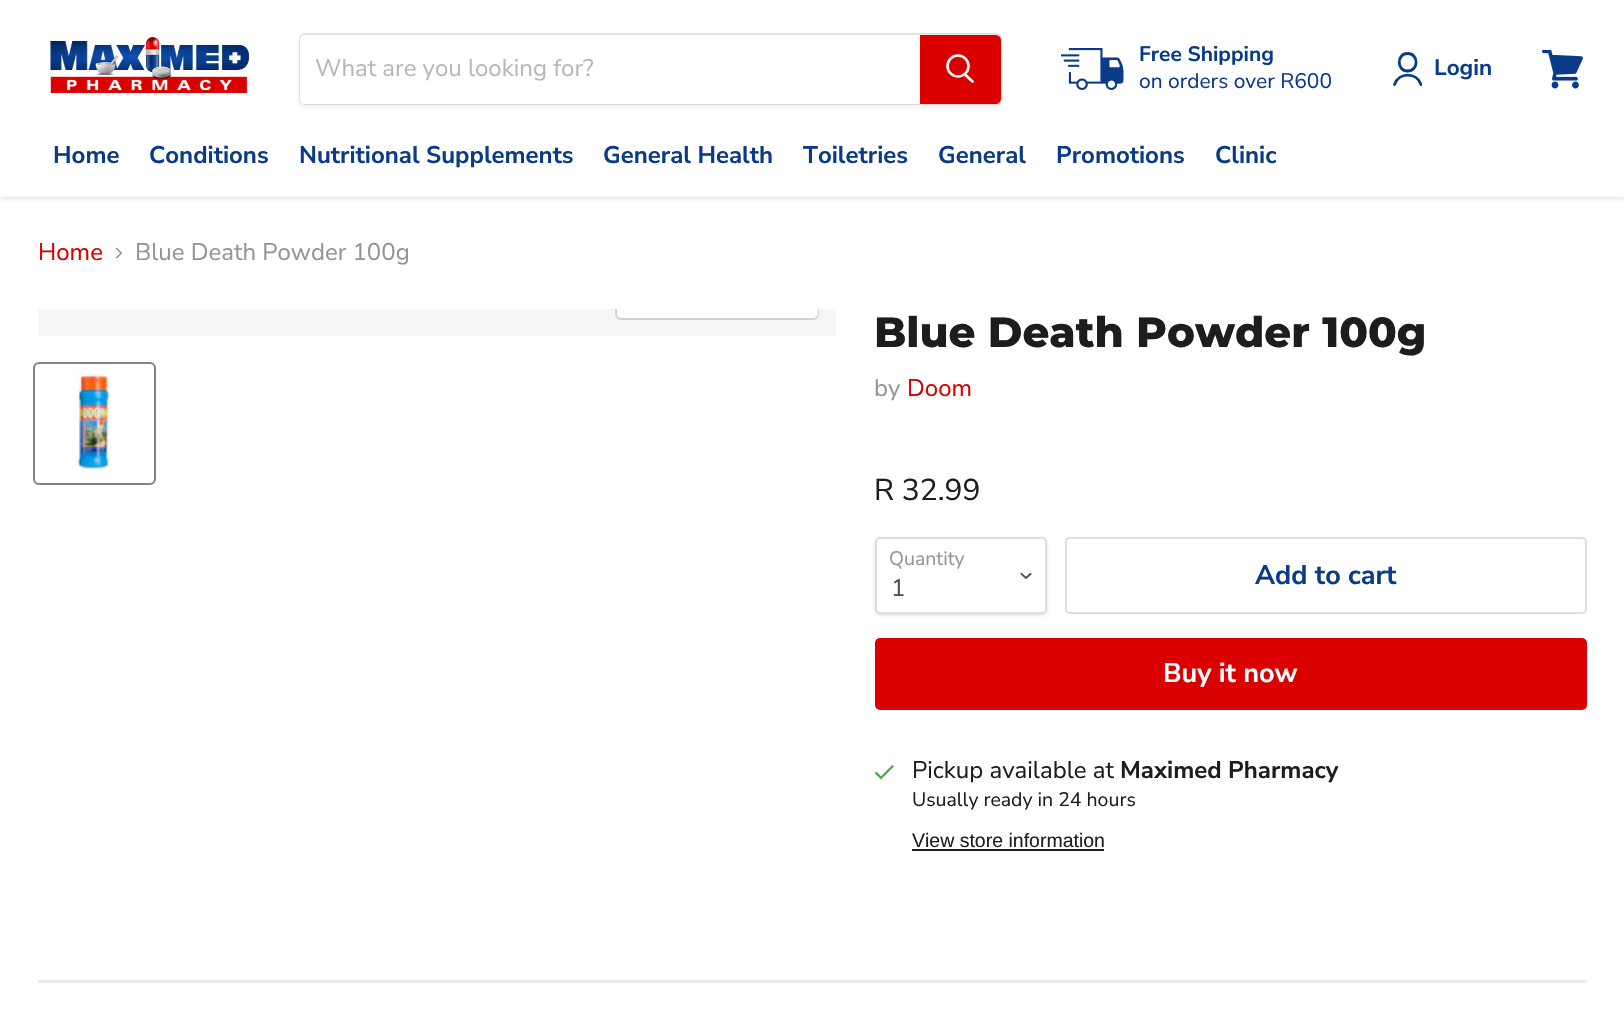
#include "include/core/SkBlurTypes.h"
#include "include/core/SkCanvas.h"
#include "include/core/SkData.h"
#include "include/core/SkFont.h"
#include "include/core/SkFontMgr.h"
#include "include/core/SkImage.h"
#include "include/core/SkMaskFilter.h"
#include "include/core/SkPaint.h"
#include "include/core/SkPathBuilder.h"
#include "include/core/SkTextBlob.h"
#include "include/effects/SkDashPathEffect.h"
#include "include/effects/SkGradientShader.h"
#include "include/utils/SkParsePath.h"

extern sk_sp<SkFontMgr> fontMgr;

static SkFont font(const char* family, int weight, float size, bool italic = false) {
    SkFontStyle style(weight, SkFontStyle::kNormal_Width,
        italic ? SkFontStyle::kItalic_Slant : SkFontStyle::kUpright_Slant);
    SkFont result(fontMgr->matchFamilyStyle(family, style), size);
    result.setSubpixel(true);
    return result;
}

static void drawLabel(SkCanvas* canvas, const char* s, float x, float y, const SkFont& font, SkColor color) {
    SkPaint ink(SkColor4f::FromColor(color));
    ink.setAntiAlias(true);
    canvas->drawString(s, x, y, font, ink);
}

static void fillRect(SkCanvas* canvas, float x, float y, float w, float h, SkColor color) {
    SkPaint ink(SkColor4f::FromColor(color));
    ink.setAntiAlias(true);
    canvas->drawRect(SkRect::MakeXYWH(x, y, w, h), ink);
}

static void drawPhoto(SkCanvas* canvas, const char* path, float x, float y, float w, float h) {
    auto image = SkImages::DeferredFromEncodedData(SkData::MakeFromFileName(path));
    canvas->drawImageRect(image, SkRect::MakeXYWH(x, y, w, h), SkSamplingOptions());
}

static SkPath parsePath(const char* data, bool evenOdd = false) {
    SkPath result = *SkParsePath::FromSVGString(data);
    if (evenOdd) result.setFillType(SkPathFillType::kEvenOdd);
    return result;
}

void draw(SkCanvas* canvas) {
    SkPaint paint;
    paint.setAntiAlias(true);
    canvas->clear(0xFFFFFFFF);
    paint.setColor(0x40808080);
    paint.setMaskFilter(SkMaskFilter::MakeBlur(kNormal_SkBlurStyle, 3));
    canvas->drawRect(SkRect::MakeXYWH(0, 2, 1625, 196), paint);
    paint.setMaskFilter(nullptr);
    fillRect(canvas, 0, 0, 1624, 197, 0xFFFFFFFF);
    drawPhoto(canvas, "assets/img1.png", 50, 36, 200, 57);
    paint.setColor(0x1C808080);
    paint.setMaskFilter(SkMaskFilter::MakeBlur(kNormal_SkBlurStyle, 2));
    canvas->drawRoundRect(SkRect::MakeXYWH(299, 36, 703, 72), 6, 6, paint);
    paint.setMaskFilter(nullptr);
    paint.setStroke(true);
    paint.setStrokeWidth(2);
    paint.setColor(0x33808080);
    canvas->drawRoundRect(SkRect::MakeXYWH(300, 34, 701, 70), 5, 5, paint);
    paint.setStroke(false);
    paint.setColor(0xFFFFFFFF);
    canvas->drawPath(parsePath("M305 35H920V104H305C302 104 300 102 300 99V40C300 37 302 35 305 35Z"), paint);
    SkFont font1 = font("Nunito Sans", 200, 24);
    drawLabel(canvas, "What are you looking for?", 315, 76, font1, 0xFFB8B8B8);
    paint.setColor(0xFFDA0000);
    canvas->drawPath(parsePath("M921 36H996C998 36 1000 38 1000 40V99C1000 101 998 103 996 103H921Z"), paint);
    paint.setStroke(true);
    canvas->drawPath(parsePath("M921 36H996C998 36 1000 38 1000 40V99C1000 101 998 103 996 103H921Z"), paint);
    paint.setStrokeWidth(2.6f);
    paint.setStrokeCap(SkPaint::kRound_Cap);
    paint.setColor(0xFFFFFFFF);
    canvas->drawPath(parsePath("M972.5 81.5L965 74.5"), paint);
    paint.setStrokeCap(SkPaint::kButt_Cap);
    canvas->drawCircle(958, 66, 10.5f, paint);
    drawPhoto(canvas, "assets/img2.png", 1061, 48, 63, 42);
    SkFont font2 = font("Nunito Sans", 700, 21);
    drawLabel(canvas, "Free Shipping", 1139, 61, font2, 0xFF093B88);
    SkFont font3 = font("Nunito Sans", 200, 21);
    drawLabel(canvas, "on orders over R600", 1139, 88, font3, 0xFF093B88);
    paint.setStrokeWidth(2.8f);
    paint.setStrokeCap(SkPaint::kRound_Cap);
    paint.setStrokeJoin(SkPaint::kRound_Join);
    paint.setColor(0xFF093B88);
    canvas->drawPath(parsePath("M1407.5 71C1419 71 1419 53.5 1407.5 53.5C1396.5 53.5 1396.5 71 1407.5 71Z"), paint);
    canvas->save();
    canvas->clipRect(SkRect::MakeXYWH(1392, 51, 30, 36));
    canvas->drawPath(parsePath("M1421 84.5C1416.5 72 1399 72 1394.5 84.5"), paint);
    canvas->restore();
    SkFont font4 = font("Nunito Sans", 700, 22.5f);
    drawLabel(canvas, "Login", 1434, 75, font4, 0xFF093B88);
    drawPhoto(canvas, "assets/img3.png", 1542, 50, 41, 39);
    SkFont font5 = font("Nunito Sans", 700, 24);
    drawLabel(canvas, "Home", 53, 163, font5, 0xFF093B88);
    drawLabel(canvas, "Conditions", 149, 163, font5, 0xFF093B88);
    drawLabel(canvas, "Nutritional Supplements", 299, 163, font5, 0xFF093B88);
    drawLabel(canvas, "General Health", 603, 163, font5, 0xFF093B88);
    drawLabel(canvas, "Toiletries", 803, 163, font5, 0xFF093B88);
    drawLabel(canvas, "General", 938, 163, font5, 0xFF093B88);
    drawLabel(canvas, "Promotions", 1056, 163, font5, 0xFF093B88);
    drawLabel(canvas, "Clinic", 1215, 163, font5, 0xFF093B88);
    drawLabel(canvas, "Home", 38, 260, font1, 0xFFDA0000);
    drawPhoto(canvas, "assets/img4.png", 115, 247, 8, 12);
    drawLabel(canvas, "Blue Death Powder 100g", 135, 260, font1, 0xFF949494);
    fillRect(canvas, 38, 309, 798, 27, 0xFFF6F6F6);
    canvas->save();
    canvas->clipRect(SkRect::MakeXYWH(38, 309, 798, 27));
    paint.setStrokeWidth(2);
    paint.setStrokeCap(SkPaint::kButt_Cap);
    paint.setStrokeJoin(SkPaint::kMiter_Join);
    paint.setColor(0xFFD1D1D1);
    canvas->drawRoundRect(SkRect::MakeXYWH(616, 276, 202, 43), 5, 5, paint);
    canvas->restore();
    paint.setStroke(false);
    paint.setColor(0xE6FFFFFF);
    canvas->drawPath(parsePath("M617 309H818V313C818 316 816 318 813 318H622C619 318 617 316 617 313Z"), paint);
    paint.setStroke(true);
    paint.setColor(0xFF818181);
    canvas->drawRoundRect(SkRect::MakeXYWH(34, 363, 121, 121), 5, 5, paint);
    drawPhoto(canvas, "assets/img5.png", 74, 366, 37, 108);
    SkFont font6 = font("Montserrat", 800, 42);
    drawLabel(canvas, "Blue Death Powder 100g", 874, 347, font6, 0xFF1D1D1D);
    drawLabel(canvas, "by", 874, 396, font1, 0xFF949494);
    drawLabel(canvas, "Doom", 907, 396, font1, 0xFFDA0000);
    SkFont font7 = font("Nunito Sans", 200, 30);
    drawLabel(canvas, "R 32.99", 874, 500, font7, 0xFF1D1D1D);
    paint.setStroke(false);
    paint.setColor(0x26000000);
    paint.setMaskFilter(SkMaskFilter::MakeBlur(kNormal_SkBlurStyle, 1.5f));
    canvas->drawRoundRect(SkRect::MakeXYWH(875, 539, 172, 76), 5, 5, paint);
    paint.setMaskFilter(nullptr);
    paint.setColor(0xFFFFFFFF);
    canvas->drawRoundRect(SkRect::MakeXYWH(876, 538, 170, 75), 4, 4, paint);
    paint.setStroke(true);
    paint.setColor(0xFFDDDDDD);
    canvas->drawRoundRect(SkRect::MakeXYWH(876, 538, 170, 75), 4, 4, paint);
    SkFont font8 = font("Nunito Sans", 200, 19.5f);
    drawLabel(canvas, "Quantity", 889, 565, font8, 0xFF949494);
    paint.setStrokeWidth(1.9f);
    paint.setStrokeCap(SkPaint::kSquare_Cap);
    paint.setColor(0xFF4D4D4D);
    canvas->drawPath(parsePath("M1026 578L1030.5 574M1026 578L1021.5 574"), paint);
    drawLabel(canvas, "1", 891, 596, font1, 0xFF4D4D4D);
    paint.setStrokeWidth(2);
    paint.setStrokeCap(SkPaint::kButt_Cap);
    paint.setColor(0xFFDDDDDD);
    canvas->drawRoundRect(SkRect::MakeXYWH(1066, 538, 520, 75), 4, 4, paint);
    SkFont font9 = font("Nunito Sans", 700, 27);
    drawLabel(canvas, "Add to cart", 1255, 584, font9, 0xFF093B88);
    paint.setStroke(false);
    paint.setColor(0xFFDA0000);
    canvas->drawRoundRect(SkRect::MakeXYWH(876, 639, 710, 70), 4, 4, paint);
    paint.setStroke(true);
    canvas->drawRoundRect(SkRect::MakeXYWH(876, 639, 710, 70), 4, 4, paint);
    drawLabel(canvas, "Buy it now", 1163, 682, font9, 0xFFFFFFFF);
    drawPhoto(canvas, "assets/img6.png", 875, 765, 19, 15);
    drawLabel(canvas, "Pickup available at", 912, 778, font1, 0xFF1D1D1D);
    drawLabel(canvas, "Maximed Pharmacy", 1120, 778, font5, 0xFF1D1D1D);
    drawLabel(canvas, "Usually ready in 24 hours", 912, 806, font8, 0xFF1D1D1D);
    SkFont font10 = font("Liberation Sans", 400, 19.5f);
    drawLabel(canvas, "View store information", 912, 847, font10, 0xFF1D1D1D);
    fillRect(canvas, 912, 849, 192, 2, 0xFF1D1D1D);
    fillRect(canvas, 38, 980, 1549, 3, 0x29808080);
}
